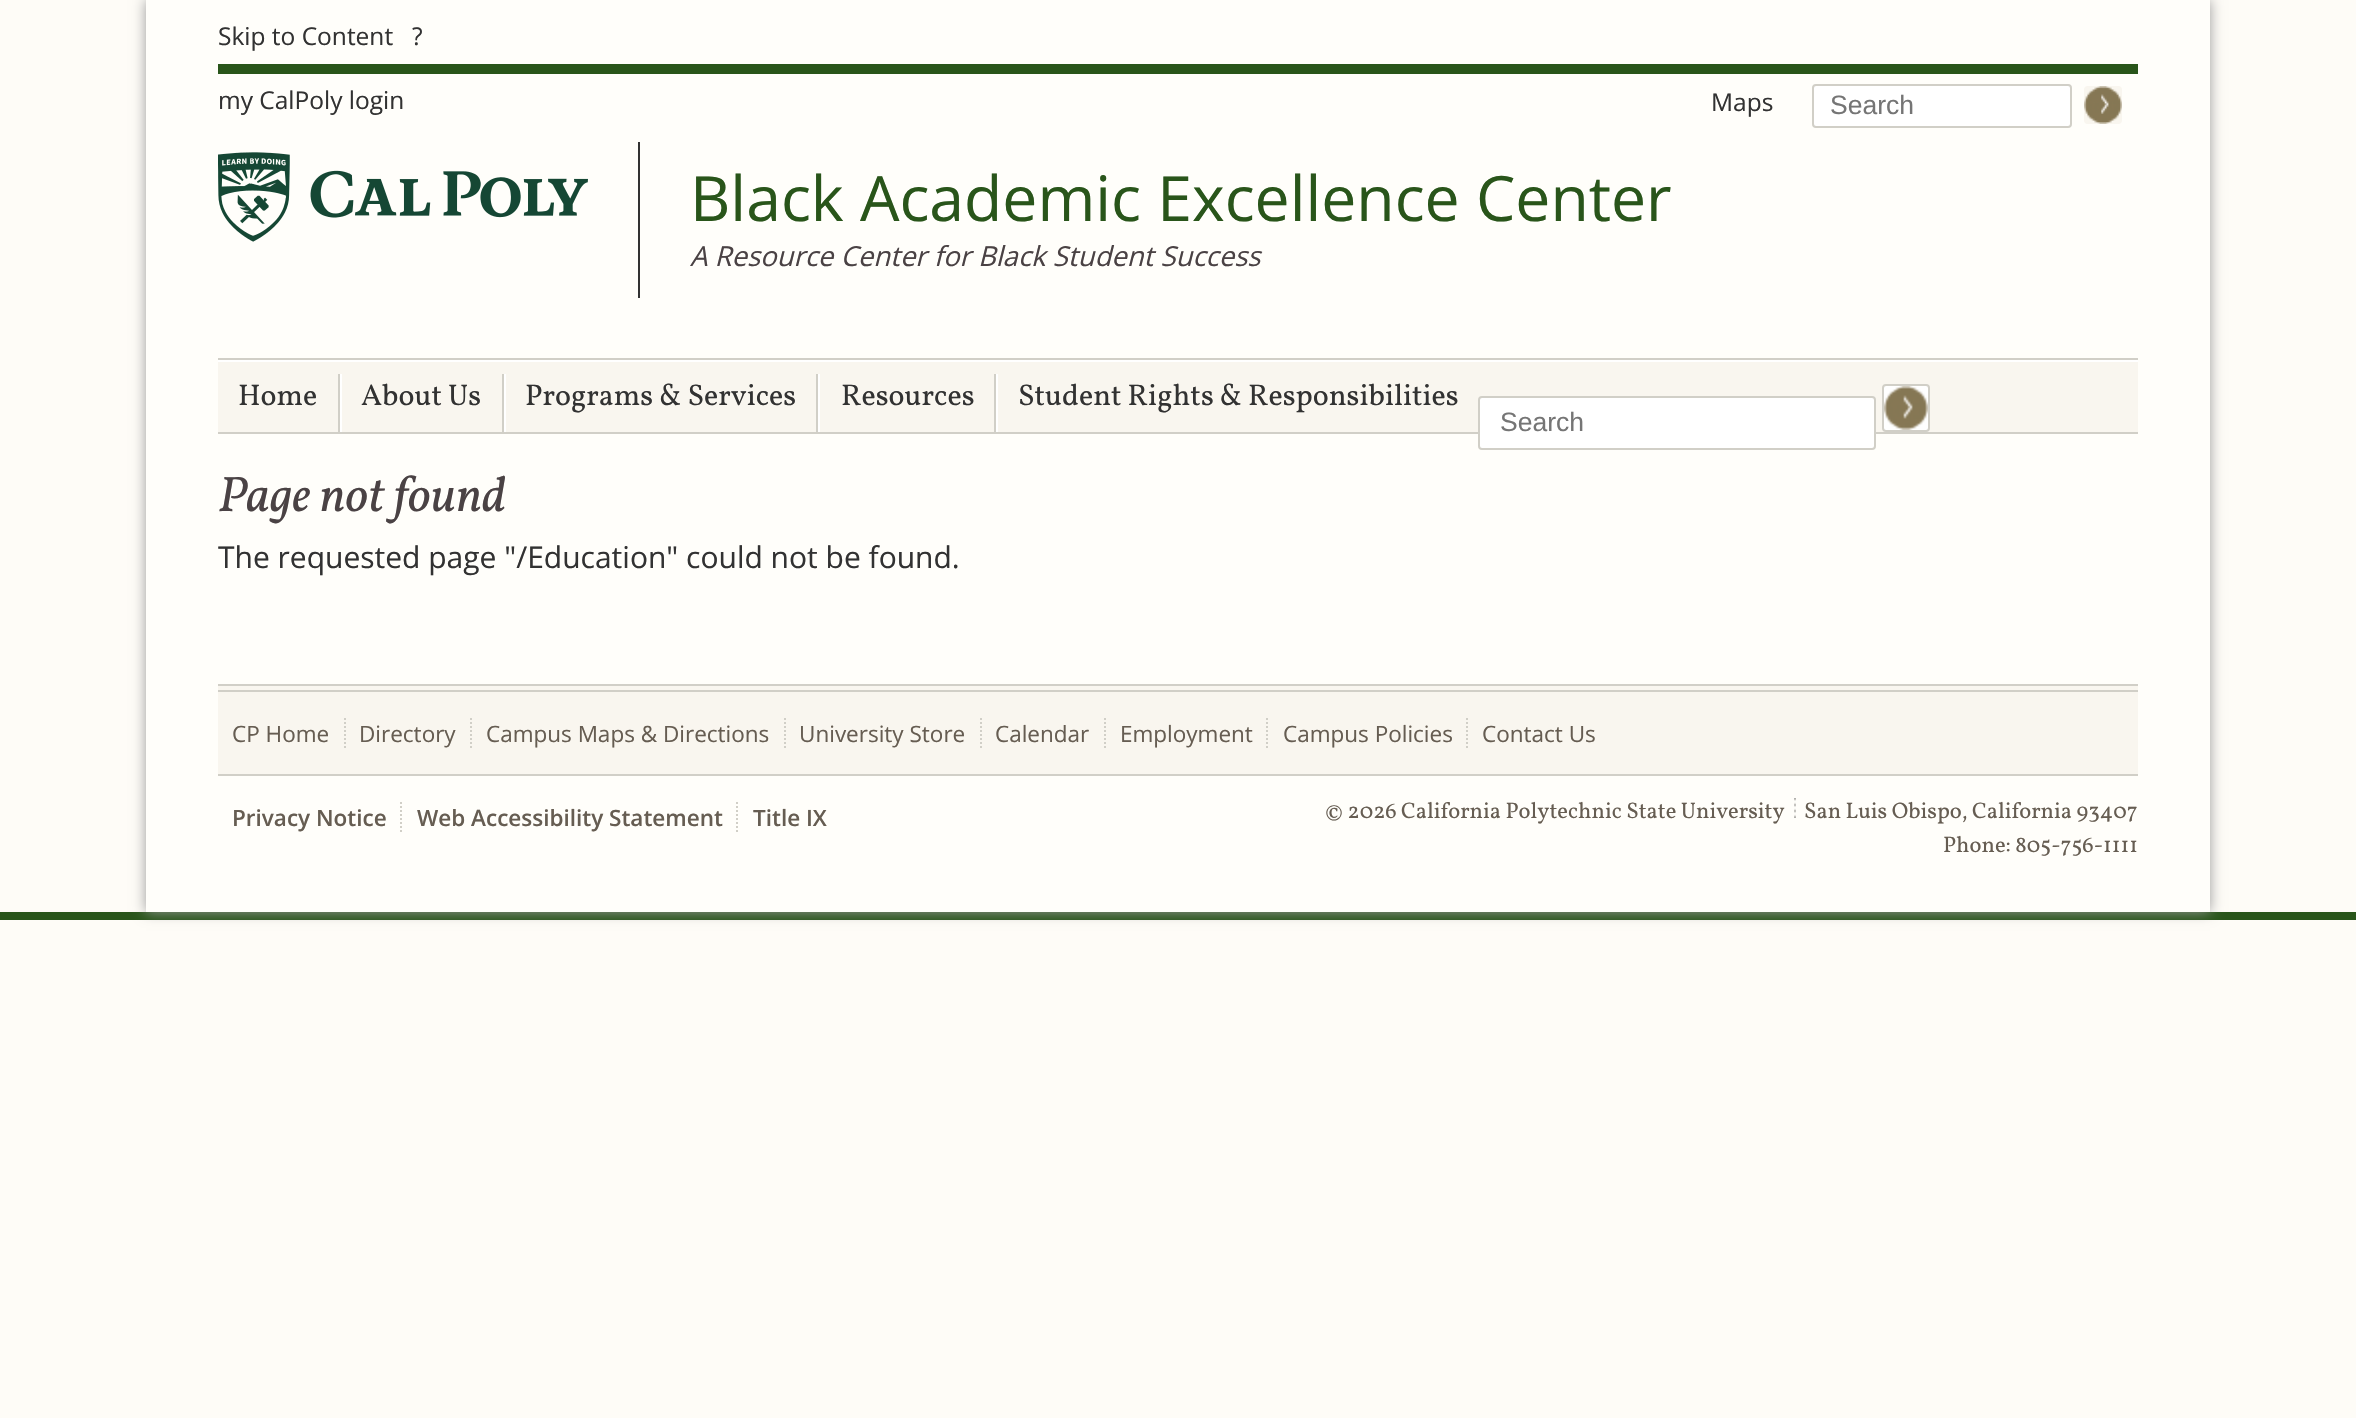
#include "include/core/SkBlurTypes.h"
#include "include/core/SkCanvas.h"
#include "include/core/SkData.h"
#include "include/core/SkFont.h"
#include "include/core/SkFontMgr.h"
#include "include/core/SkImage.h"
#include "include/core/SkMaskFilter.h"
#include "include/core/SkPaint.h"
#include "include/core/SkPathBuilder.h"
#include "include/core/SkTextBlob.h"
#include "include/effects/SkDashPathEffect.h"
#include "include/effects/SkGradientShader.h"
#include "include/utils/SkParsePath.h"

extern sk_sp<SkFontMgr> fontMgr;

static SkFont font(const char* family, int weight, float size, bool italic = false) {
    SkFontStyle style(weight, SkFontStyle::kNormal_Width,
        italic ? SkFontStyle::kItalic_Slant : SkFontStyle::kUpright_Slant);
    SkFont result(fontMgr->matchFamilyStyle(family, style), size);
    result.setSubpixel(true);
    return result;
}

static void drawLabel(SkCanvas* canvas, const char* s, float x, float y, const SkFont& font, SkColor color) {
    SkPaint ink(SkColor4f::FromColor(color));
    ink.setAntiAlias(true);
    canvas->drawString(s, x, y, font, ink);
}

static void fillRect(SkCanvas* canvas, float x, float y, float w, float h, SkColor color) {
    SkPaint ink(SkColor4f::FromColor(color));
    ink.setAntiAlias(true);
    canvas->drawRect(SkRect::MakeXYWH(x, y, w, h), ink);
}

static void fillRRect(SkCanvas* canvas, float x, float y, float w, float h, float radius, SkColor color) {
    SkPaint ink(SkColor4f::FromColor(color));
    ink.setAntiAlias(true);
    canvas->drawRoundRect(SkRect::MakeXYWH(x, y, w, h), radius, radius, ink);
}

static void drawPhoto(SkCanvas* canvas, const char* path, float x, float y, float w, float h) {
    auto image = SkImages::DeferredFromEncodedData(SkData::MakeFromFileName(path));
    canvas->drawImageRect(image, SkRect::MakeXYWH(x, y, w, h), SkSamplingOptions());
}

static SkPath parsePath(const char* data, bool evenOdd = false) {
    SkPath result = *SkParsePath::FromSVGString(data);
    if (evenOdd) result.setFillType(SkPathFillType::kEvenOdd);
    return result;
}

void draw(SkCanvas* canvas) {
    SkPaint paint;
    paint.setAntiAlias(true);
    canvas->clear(0xFFFEFCF7);
    fillRect(canvas, 0, 912, 2356, 8, 0xFF29551A);
    paint.setColor(0xFF999999);
    paint.setMaskFilter(SkMaskFilter::MakeBlur(kNormal_SkBlurStyle, 6.5f));
    canvas->drawRect(SkRect::MakeXYWH(146, 0, 2064, 912), paint);
    paint.setMaskFilter(nullptr);
    fillRect(canvas, 146, 0, 2064, 912, 0xFFFFFEFA);
    SkFont font1 = font("Open Sans", 400, 24.5f);
    drawLabel(canvas, "Skip to Content", 218, 45, font1, 0xFF323232);
    drawLabel(canvas, "?", 412, 45, font1, 0xFF323232);
    fillRect(canvas, 218, 64, 1920, 10, 0xFF29551A);
    drawLabel(canvas, "my CalPoly login", 218, 109, font1, 0xFF323232);
    drawLabel(canvas, "Maps", 1711, 111, font1, 0xFF323232);
    paint.setColor(0xFFFFFFFF);
    canvas->drawRoundRect(SkRect::MakeXYWH(1813, 85, 258, 42), 3, 3, paint);
    paint.setStroke(true);
    paint.setStrokeWidth(2);
    paint.setColor(0xFFD1CFC7);
    canvas->drawRoundRect(SkRect::MakeXYWH(1813, 85, 258, 42), 3, 3, paint);
    SkFont font2 = font("Liberation Sans", 400, 26.5f);
    drawLabel(canvas, "Search", 1830, 114, font2, 0xFF757575);
    fillRRect(canvas, 2084, 86, 38, 38, 4, 0xFFF9F6EF);
    drawPhoto(canvas, "assets/img1.png", 2084, 86, 38, 38);
    drawPhoto(canvas, "assets/img2.png", 218, 152, 370, 90);
    fillRect(canvas, 638, 142, 2, 156, 0xFF323232);
    SkFont font3 = font("Open Sans", 400, 62.5f);
    drawLabel(canvas, "Black Academic Excellence Center", 690, 221, font3, 0xFF29551A);
    SkFont font4 = font("Open Sans", 400, 27.5f, true);
    drawLabel(canvas, "A Resource Center for Black Student Success", 690, 266, font4, 0xFF4A4244);
    fillRect(canvas, 218, 362, 1920, 70, 0xFFF9F6EF);
    fillRect(canvas, 218, 358, 1920, 2, 0xFFD1CFC7);
    fillRect(canvas, 218, 432, 1920, 2, 0xFFD1CFC7);
    fillRect(canvas, 218, 360, 1920, 2, 0xFFFFFFFF);
    fillRect(canvas, 338, 374, 2, 58, 0xFFD1CFC7);
    SkFont font5 = font("Vollkorn", 400, 30);
    drawLabel(canvas, "Home", 238, 405, font5, 0xFF323232);
    fillRect(canvas, 502, 374, 2, 58, 0xFFD1CFC7);
    fillRect(canvas, 340, 374, 2, 58, 0xFFFFFFFF);
    drawLabel(canvas, "About Us", 361, 405, font5, 0xFF323232);
    fillRect(canvas, 816, 374, 2, 58, 0xFFD1CFC7);
    fillRect(canvas, 504, 374, 2, 58, 0xFFFFFFFF);
    drawLabel(canvas, "Programs & Services", 525, 405, font5, 0xFF323232);
    fillRect(canvas, 994, 374, 2, 58, 0xFFD1CFC7);
    fillRect(canvas, 818, 374, 2, 58, 0xFFFFFFFF);
    drawLabel(canvas, "Resources", 841, 405, font5, 0xFF323232);
    fillRect(canvas, 996, 374, 2, 58, 0xFFFFFFFF);
    drawLabel(canvas, "Student Rights & Responsibilities", 1018, 405, font5, 0xFF323232);
    paint.setStroke(false);
    paint.setColor(0xFFFFFFFF);
    canvas->drawRoundRect(SkRect::MakeXYWH(1479, 397, 396, 52), 3, 3, paint);
    paint.setStroke(true);
    paint.setColor(0xFFD1CFC7);
    canvas->drawRoundRect(SkRect::MakeXYWH(1479, 397, 396, 52), 3, 3, paint);
    drawLabel(canvas, "Search", 1500, 431, font2, 0xFF757575);
    paint.setStroke(false);
    paint.setColor(0xFFFFFFFF);
    canvas->drawRoundRect(SkRect::MakeXYWH(1883, 385, 46, 46), 3, 3, paint);
    paint.setStroke(true);
    paint.setColor(0xFFD1CFC7);
    canvas->drawRoundRect(SkRect::MakeXYWH(1883, 385, 46, 46), 3, 3, paint);
    drawPhoto(canvas, "assets/img3.png", 1884, 386, 44, 44);
    SkFont font6 = font("Vollkorn", 400, 50, true);
    drawLabel(canvas, "Page not found", 218, 511, font6, 0xFF4A4244);
    SkFont font7 = font("Open Sans", 400, 30);
    drawLabel(canvas, "The requested page \"/Education\" could not be found.", 218, 568, font7, 0xFF323232);
    fillRect(canvas, 218, 686, 1920, 88, 0xFFF9F6EF);
    fillRect(canvas, 218, 684, 1920, 2, 0xFFD1CFC7);
    fillRect(canvas, 218, 690, 1920, 2, 0xFFD1CFC7);
    fillRect(canvas, 218, 774, 1920, 2, 0xFFD1CFC7);
    SkFont font8 = font("Open Sans", 400, 22.5f);
    drawLabel(canvas, "CP Home", 232, 742, font8, 0xFF665D52);
    paint.setPathEffect(SkDashPathEffect::Make({{2, 2}}, 0));
    canvas->drawPath(parsePath("M345 718V748"), paint);
    paint.setPathEffect(nullptr);
    drawLabel(canvas, "Directory", 359, 742, font8, 0xFF665D52);
    paint.setPathEffect(SkDashPathEffect::Make({{2, 2}}, 0));
    canvas->drawPath(parsePath("M471 718V748"), paint);
    paint.setPathEffect(nullptr);
    drawLabel(canvas, "Campus Maps & Directions", 486, 742, font8, 0xFF665D52);
    paint.setPathEffect(SkDashPathEffect::Make({{2, 2}}, 0));
    canvas->drawPath(parsePath("M785 718V748"), paint);
    paint.setPathEffect(nullptr);
    drawLabel(canvas, "University Store", 799, 742, font8, 0xFF665D52);
    paint.setPathEffect(SkDashPathEffect::Make({{2, 2}}, 0));
    canvas->drawPath(parsePath("M981 718V748"), paint);
    paint.setPathEffect(nullptr);
    drawLabel(canvas, "Calendar", 995, 742, font8, 0xFF665D52);
    paint.setPathEffect(SkDashPathEffect::Make({{2, 2}}, 0));
    canvas->drawPath(parsePath("M1105 718V748"), paint);
    paint.setPathEffect(nullptr);
    drawLabel(canvas, "Employment", 1120, 742, font8, 0xFF665D52);
    paint.setPathEffect(SkDashPathEffect::Make({{2, 2}}, 0));
    canvas->drawPath(parsePath("M1267 718V748"), paint);
    paint.setPathEffect(nullptr);
    drawLabel(canvas, "Campus Policies", 1283, 742, font8, 0xFF665D52);
    paint.setPathEffect(SkDashPathEffect::Make({{2, 2}}, 0));
    canvas->drawPath(parsePath("M1467 718V748"), paint);
    paint.setPathEffect(nullptr);
    drawLabel(canvas, "Contact Us", 1482, 742, font8, 0xFF665D52);
    SkFont font9 = font("Open Sans", 600, 22.5f);
    drawLabel(canvas, "Privacy Notice", 232, 826, font9, 0xFF665D52);
    paint.setPathEffect(SkDashPathEffect::Make({{2, 2}}, 0));
    canvas->drawPath(parsePath("M401 802V832"), paint);
    paint.setPathEffect(nullptr);
    drawLabel(canvas, "Web Accessibility Statement", 417, 826, font9, 0xFF665D52);
    paint.setPathEffect(SkDashPathEffect::Make({{2, 2}}, 0));
    canvas->drawPath(parsePath("M737 802V832"), paint);
    paint.setPathEffect(nullptr);
    drawLabel(canvas, "Title IX", 753, 826, font9, 0xFF665D52);
    SkFont font10 = font("Vollkorn", 400, 22.5f);
    drawLabel(canvas, "© 2026 California Polytechnic State University", 1325, 818, font10, 0xFF665D52);
    drawPhoto(canvas, "assets/img4.png", 1794, 798, 2, 20);
    drawLabel(canvas, "San Luis Obispo, California 93407", 1804, 818, font10, 0xFF665D52);
    drawLabel(canvas, "Phone: 805-756-1111", 1943, 852, font10, 0xFF665D52);
}
